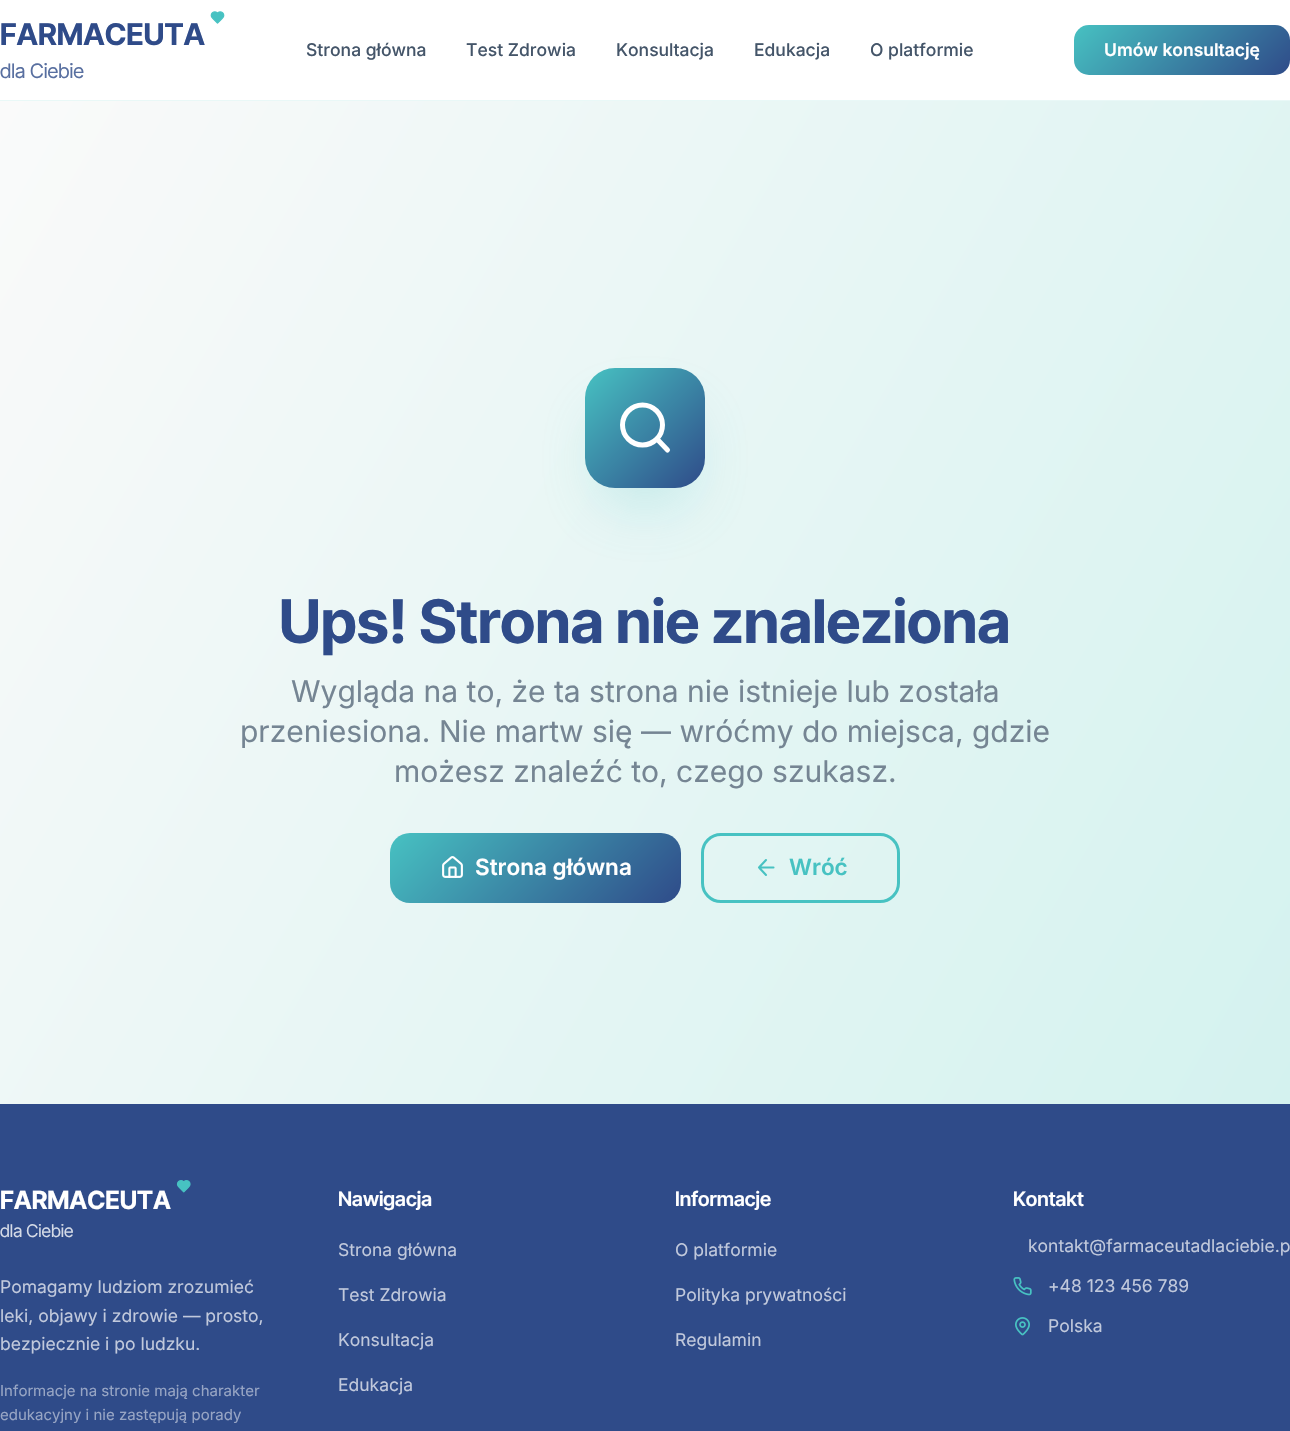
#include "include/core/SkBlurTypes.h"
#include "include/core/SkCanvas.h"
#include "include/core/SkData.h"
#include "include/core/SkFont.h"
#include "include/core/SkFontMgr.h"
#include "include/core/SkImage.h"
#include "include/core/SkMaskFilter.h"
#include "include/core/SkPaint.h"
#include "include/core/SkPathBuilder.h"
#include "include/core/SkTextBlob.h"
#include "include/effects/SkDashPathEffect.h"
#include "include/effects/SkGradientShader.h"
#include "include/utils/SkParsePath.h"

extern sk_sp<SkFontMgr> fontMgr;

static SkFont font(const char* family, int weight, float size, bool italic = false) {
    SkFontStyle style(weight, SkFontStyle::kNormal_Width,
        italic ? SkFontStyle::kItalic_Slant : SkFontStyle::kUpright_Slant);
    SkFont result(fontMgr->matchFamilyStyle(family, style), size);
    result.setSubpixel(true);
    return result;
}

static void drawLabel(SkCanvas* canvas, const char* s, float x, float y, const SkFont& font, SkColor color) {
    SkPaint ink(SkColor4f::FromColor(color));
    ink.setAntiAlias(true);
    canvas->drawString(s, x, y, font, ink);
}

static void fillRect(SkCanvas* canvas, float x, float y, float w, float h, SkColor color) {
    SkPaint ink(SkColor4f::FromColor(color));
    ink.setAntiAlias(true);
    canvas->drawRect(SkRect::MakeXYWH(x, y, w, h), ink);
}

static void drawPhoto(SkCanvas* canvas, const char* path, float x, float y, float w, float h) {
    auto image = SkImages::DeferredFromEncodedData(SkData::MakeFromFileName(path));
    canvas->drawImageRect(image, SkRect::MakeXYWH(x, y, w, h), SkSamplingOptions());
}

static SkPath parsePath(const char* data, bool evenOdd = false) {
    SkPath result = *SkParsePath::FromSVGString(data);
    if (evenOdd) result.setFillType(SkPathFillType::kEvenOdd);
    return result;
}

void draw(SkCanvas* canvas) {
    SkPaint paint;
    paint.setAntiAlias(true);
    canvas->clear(0xFFFFFFFF);
    fillRect(canvas, 0, 100, 1290, 1, 0xFFE9F8F7);
    drawPhoto(canvas, "assets/img1.png", 210, 11, 15, 13);
    SkFont font1 = font("Inter Tight", 700, 30);
    drawLabel(canvas, "FARMACEUTA", 0, 45, font1, 0xFF2F4B89);
    SkFont font2 = font("Inter Tight", 400, 20);
    drawLabel(canvas, "dla Ciebie", 0, 78, font2, 0xFF586FA0);
    SkFont font3 = font("Inter", 500, 17.5f);
    drawLabel(canvas, "Strona główna", 306, 56, font3, 0xFF445569);
    drawLabel(canvas, "Test Zdrowia", 466, 56, font3, 0xFF445569);
    drawLabel(canvas, "Konsultacja", 616, 56, font3, 0xFF445569);
    drawLabel(canvas, "Edukacja", 754, 56, font3, 0xFF445569);
    drawLabel(canvas, "O platformie", 870, 56, font3, 0xFF445569);
    {
        const SkColor colors[] = {0xFF47C2C2, 0xFF2F4B89};
        const float stops[] = {0, 1};
        const SkPoint ends[] = {{1115, -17}, {1248, 117}};
        paint.setShader(SkGradientShader::MakeLinear(ends, colors, stops, 2, SkTileMode::kClamp));
        paint.setAlpha(255);
    }
    canvas->drawRoundRect(SkRect::MakeXYWH(1074, 25, 216, 50), 15, 15, paint);
    SkFont font4 = font("Inter", 600, 17.5f);
    drawLabel(canvas, "Umów konsultację", 1104, 56, font4, 0xFFFFFFFF);
    {
        const SkColor colors[] = {0xFFFAFAFA, 0xFFD4F2EF};
        const float stops[] = {0, 1};
        const SkPoint ends[] = {{-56, 198}, {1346, 1007}};
        paint.setShader(SkGradientShader::MakeLinear(ends, colors, stops, 2, SkTileMode::kClamp));
        paint.setAlpha(255);
    }
    canvas->drawRect(SkRect::MakeXYWH(0, 101, 1290, 1003), paint);
    paint.setShader(nullptr);
    paint.setColor(0x4047C2C2);
    paint.setMaskFilter(SkMaskFilter::MakeBlur(kNormal_SkBlurStyle, 31));
    canvas->drawRoundRect(SkRect::MakeXYWH(600, 414, 90, 90), 15, 15, paint);
    paint.setMaskFilter(nullptr);
    {
        const SkColor colors[] = {0xFF47C2C2, 0xFF2F4B89};
        const float stops[] = {0, 1};
        const SkPoint ends[] = {{585, 368}, {705, 488}};
        paint.setShader(SkGradientShader::MakeLinear(ends, colors, stops, 2, SkTileMode::kClamp));
        paint.setAlpha(255);
    }
    canvas->drawRoundRect(SkRect::MakeXYWH(585, 368, 120, 120), 30, 30, paint);
    paint.setStroke(true);
    paint.setStrokeWidth(5);
    paint.setShader(nullptr);
    paint.setColor(0xFFFFFFFF);
    canvas->drawCircle(642.5f, 425, 20, paint);
    paint.setStrokeCap(SkPaint::kRound_Cap);
    paint.setStrokeJoin(SkPaint::kRound_Join);
    canvas->drawPath(parsePath("M667.5 450L657 439"), paint);
    SkFont font5 = font("Inter Tight", 700, 60);
    drawLabel(canvas, "Ups! Strona nie znaleziona", 279, 643, font5, 0xFF2F4B89);
    SkFont font6 = font("Inter", 400, 30);
    drawLabel(canvas, "Wygląda na to, że ta strona nie istnieje lub została", 291, 702, font6, 0xFF758593);
    drawLabel(canvas, "przeniesiona. Nie martw się — wróćmy do miejsca, gdzie", 240, 742, font6, 0xFF758593);
    drawLabel(canvas, "możesz znaleźć to, czego szukasz.", 394, 782, font6, 0xFF758593);
    paint.setStroke(false);
    {
        const SkColor colors[] = {0xFF47C2C2, 0xFF2F4B89};
        const float stops[] = {0, 1};
        const SkPoint ends[] = {{445, 777}, {626, 958}};
        paint.setShader(SkGradientShader::MakeLinear(ends, colors, stops, 2, SkTileMode::kClamp));
        paint.setAlpha(255);
    }
    canvas->drawRoundRect(SkRect::MakeXYWH(390, 833, 291, 70), 20, 20, paint);
    drawPhoto(canvas, "assets/img2.png", 442, 856, 21, 22);
    SkFont font7 = font("Inter", 600, 22.5f);
    drawLabel(canvas, "Strona główna", 475, 875, font7, 0xFFFFFFFF);
    paint.setStroke(true);
    paint.setStrokeWidth(3);
    paint.setStrokeCap(SkPaint::kButt_Cap);
    paint.setStrokeJoin(SkPaint::kMiter_Join);
    paint.setShader(nullptr);
    paint.setColor(0xFF47C2C2);
    canvas->drawRoundRect(SkRect::MakeXYWH(702.5f, 834.5f, 196, 67), 18.5f, 18.5f, paint);
    paint.setStrokeWidth(2.1f);
    paint.setStrokeCap(SkPaint::kRound_Cap);
    paint.setStrokeJoin(SkPaint::kRound_Join);
    canvas->drawPath(parsePath("M766 875L759 867.5L766 860M773.5 867.5H759"), paint);
    drawLabel(canvas, "Wróć", 789, 875, font7, 0xFF47C2C2);
    fillRect(canvas, 0, 1104, 1290, 327, 0xFF2F4B89);
    drawPhoto(canvas, "assets/img3.png", 176, 1180, 15, 13);
    SkFont font8 = font("Inter Tight", 700, 25);
    drawLabel(canvas, "FARMACEUTA", 0, 1209, font8, 0xFFFFFFFF);
    SkFont font9 = font("Inter Tight", 400, 17.5f);
    drawLabel(canvas, "dla Ciebie", 0, 1237, font9, 0xFFD5DBE7);
    SkFont font10 = font("Inter", 400, 17.5f);
    drawLabel(canvas, "Pomagamy ludziom zrozumieć", 0, 1293, font10, 0xFFC1C9DC);
    drawLabel(canvas, "leki, objawy i zdrowie — prosto,", 0, 1322, font10, 0xFFC1C9DC);
    drawLabel(canvas, "bezpiecznie i po ludzku.", 0, 1350, font10, 0xFFC1C9DC);
    SkFont font11 = font("Inter", 400, 15);
    drawLabel(canvas, "Informacje na stronie mają charakter", 0, 1396, font11, 0xFF97A5C4);
    drawLabel(canvas, "edukacyjny i nie zastępują porady", 0, 1420, font11, 0xFF97A5C4);
    SkFont font12 = font("Inter Tight", 600, 20);
    drawLabel(canvas, "Nawigacja", 338, 1206, font12, 0xFFFFFFFF);
    drawLabel(canvas, "Strona główna", 338, 1256, font10, 0xFFC1C9DC);
    drawLabel(canvas, "Test Zdrowia", 338, 1301, font10, 0xFFC1C9DC);
    drawLabel(canvas, "Konsultacja", 338, 1346, font10, 0xFFC1C9DC);
    drawLabel(canvas, "Edukacja", 338, 1391, font10, 0xFFC1C9DC);
    drawLabel(canvas, "Informacje", 675, 1206, font12, 0xFFFFFFFF);
    drawLabel(canvas, "O platformie", 675, 1256, font10, 0xFFC1C9DC);
    drawLabel(canvas, "Polityka prywatności", 675, 1301, font10, 0xFFC1C9DC);
    drawLabel(canvas, "Regulamin", 675, 1346, font10, 0xFFC1C9DC);
    drawLabel(canvas, "Kontakt", 1013, 1206, font12, 0xFFFFFFFF);
    drawLabel(canvas, "kontakt@farmaceutadlaciebie.p", 1028, 1252, font10, 0xFFC1C9DC);
    drawPhoto(canvas, "assets/img4.png", 1013, 1277, 19, 19);
    drawLabel(canvas, "+48 123 456 789", 1048, 1292, font10, 0xFFC1C9DC);
    drawPhoto(canvas, "assets/img5.png", 1015, 1317, 15, 19);
    drawLabel(canvas, "Polska", 1048, 1332, font10, 0xFFC1C9DC);
}
